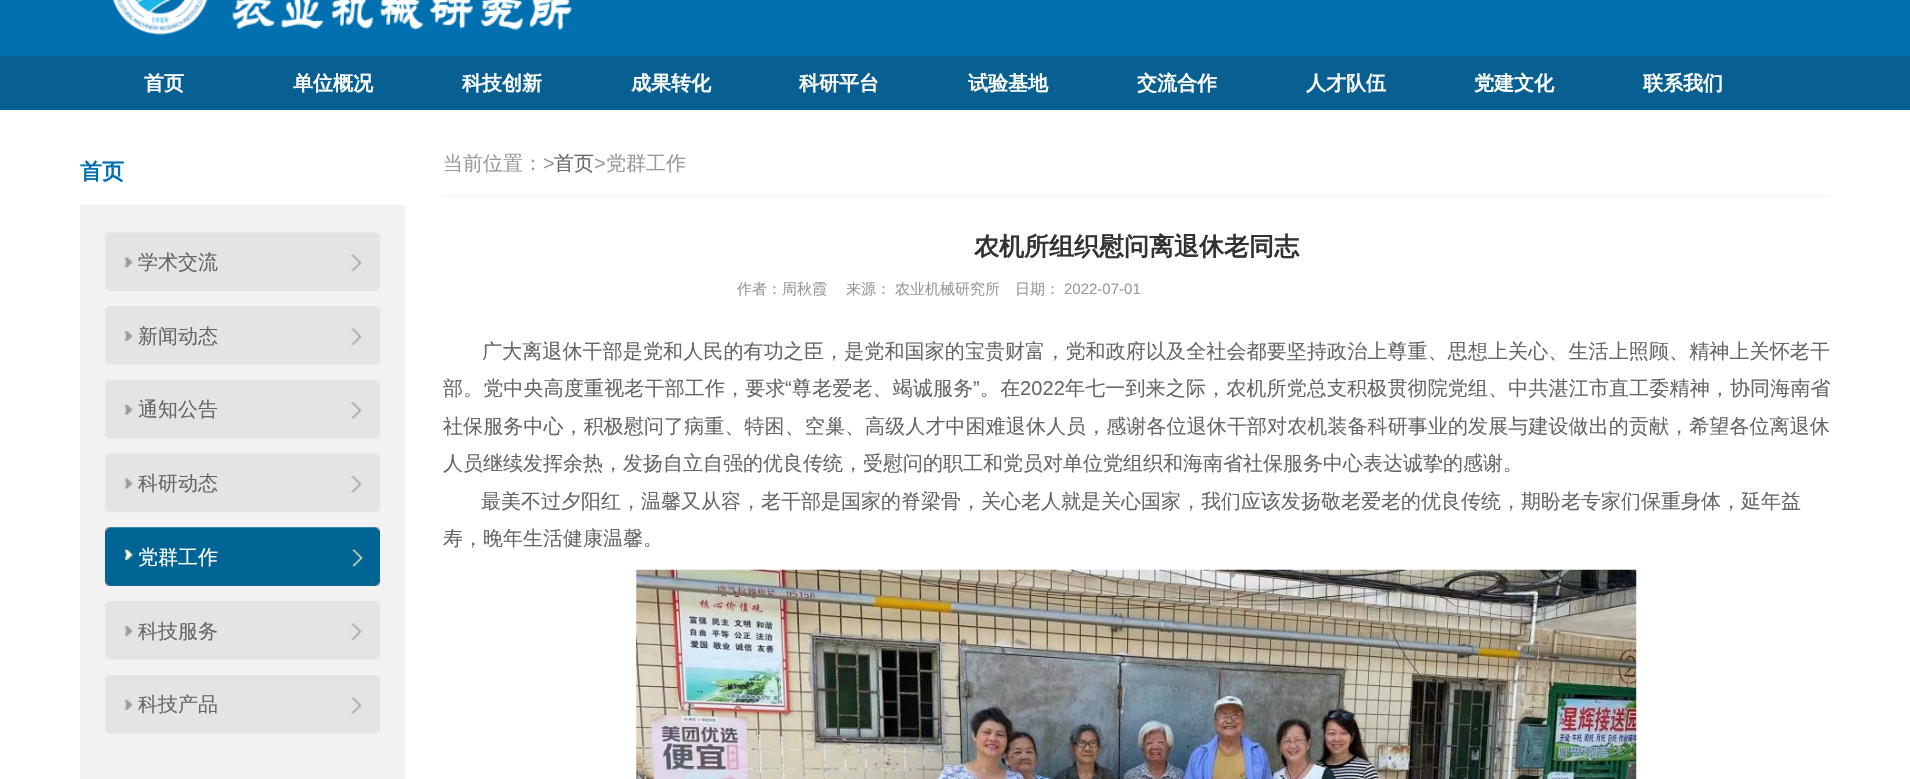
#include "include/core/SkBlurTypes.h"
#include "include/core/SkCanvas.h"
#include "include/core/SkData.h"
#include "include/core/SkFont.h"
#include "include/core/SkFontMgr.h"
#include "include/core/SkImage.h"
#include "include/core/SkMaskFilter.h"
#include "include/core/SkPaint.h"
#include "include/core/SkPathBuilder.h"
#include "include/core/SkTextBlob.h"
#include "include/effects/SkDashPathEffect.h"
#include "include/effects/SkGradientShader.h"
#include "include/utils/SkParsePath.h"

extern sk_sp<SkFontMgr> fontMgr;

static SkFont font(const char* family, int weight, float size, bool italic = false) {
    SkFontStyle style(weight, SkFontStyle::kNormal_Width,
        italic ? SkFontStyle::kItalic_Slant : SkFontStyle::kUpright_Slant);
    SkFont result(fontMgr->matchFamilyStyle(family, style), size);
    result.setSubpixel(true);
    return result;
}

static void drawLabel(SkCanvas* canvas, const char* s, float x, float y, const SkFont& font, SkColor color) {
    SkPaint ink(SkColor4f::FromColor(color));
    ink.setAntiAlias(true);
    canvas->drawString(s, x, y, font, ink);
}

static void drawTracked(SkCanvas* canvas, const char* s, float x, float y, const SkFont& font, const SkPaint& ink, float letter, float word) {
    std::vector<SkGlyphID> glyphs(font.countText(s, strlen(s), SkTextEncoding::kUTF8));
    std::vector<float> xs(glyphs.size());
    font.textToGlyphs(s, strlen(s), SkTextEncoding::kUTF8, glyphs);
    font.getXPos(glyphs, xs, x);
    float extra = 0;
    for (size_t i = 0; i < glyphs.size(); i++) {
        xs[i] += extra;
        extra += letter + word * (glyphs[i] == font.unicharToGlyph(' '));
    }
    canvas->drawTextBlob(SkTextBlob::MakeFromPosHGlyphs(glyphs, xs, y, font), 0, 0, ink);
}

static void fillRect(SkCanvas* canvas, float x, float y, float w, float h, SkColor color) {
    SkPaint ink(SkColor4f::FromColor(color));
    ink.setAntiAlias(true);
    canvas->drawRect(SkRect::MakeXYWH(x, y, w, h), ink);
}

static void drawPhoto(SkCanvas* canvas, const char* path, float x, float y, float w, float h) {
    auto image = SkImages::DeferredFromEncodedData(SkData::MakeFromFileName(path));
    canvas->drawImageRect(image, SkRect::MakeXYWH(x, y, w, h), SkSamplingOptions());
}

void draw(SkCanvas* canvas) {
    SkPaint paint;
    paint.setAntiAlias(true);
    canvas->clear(0xFFFFFFFF);
    fillRect(canvas, 0, 0, 1910, 56, 0xFF0070B0);
    drawPhoto(canvas, "assets/img1.png", 112, 0, 460, 36);
    fillRect(canvas, 0, 56, 1910, 54, 0xFF085F91);
    SkFont font1 = font("WenQuanYi Zen Hei", 700, 20);
    drawLabel(canvas, "首页", 144, 90, font1, 0xFFFFFFFF);
    drawLabel(canvas, "单位概况", 293, 90, font1, 0xFFFFFFFF);
    drawLabel(canvas, "科技创新", 462, 90, font1, 0xFFFFFFFF);
    drawLabel(canvas, "成果转化", 631, 90, font1, 0xFFFFFFFF);
    drawLabel(canvas, "科研平台", 799, 90, font1, 0xFFFFFFFF);
    drawLabel(canvas, "试验基地", 968, 90, font1, 0xFFFFFFFF);
    drawLabel(canvas, "交流合作", 1137, 90, font1, 0xFFFFFFFF);
    drawLabel(canvas, "人才队伍", 1306, 90, font1, 0xFFFFFFFF);
    drawLabel(canvas, "党建文化", 1474, 90, font1, 0xFFFFFFFF);
    drawLabel(canvas, "联系我们", 1643, 90, font1, 0xFFFFFFFF);
    SkFont font2 = font("WenQuanYi Zen Hei", 700, 22);
    drawLabel(canvas, "首页", 80, 179, font2, 0xFF0070B0);
    fillRect(canvas, 80, 205, 325, 574, 0xFFF2F2F2);
    drawPhoto(canvas, "assets/img2.png", 105, 232, 275, 59);
    SkFont font3 = font("WenQuanYi Zen Hei", 500, 20);
    drawLabel(canvas, "学术交流", 138, 269, font3, 0xFF666666);
    drawPhoto(canvas, "assets/img3.png", 105, 306, 275, 59);
    drawLabel(canvas, "新闻动态", 138, 343, font3, 0xFF666666);
    drawPhoto(canvas, "assets/img4.png", 105, 380, 275, 59);
    drawLabel(canvas, "通知公告", 138, 416, font3, 0xFF666666);
    drawPhoto(canvas, "assets/img5.png", 105, 453, 275, 59);
    drawLabel(canvas, "科研动态", 138, 490, font3, 0xFF666666);
    drawPhoto(canvas, "assets/img6.png", 105, 527, 275, 59);
    drawLabel(canvas, "党群工作", 138, 564, font3, 0xFFFFFFFF);
    drawPhoto(canvas, "assets/img3.png", 105, 601, 275, 59);
    drawLabel(canvas, "科技服务", 138, 638, font3, 0xFF666666);
    drawPhoto(canvas, "assets/img4.png", 105, 675, 275, 59);
    drawLabel(canvas, "科技产品", 138, 711, font3, 0xFF666666);
    fillRect(canvas, 443, 195, 1387, 1, 0xFFF2F2F2);
    drawLabel(canvas, "当前位置：", 443, 170, font3, 0xFF999999);
    SkFont font4 = font("Liberation Sans", 400, 20);
    drawLabel(canvas, ">", 543, 170, font4, 0xFF999999);
    drawLabel(canvas, "首页", 554, 170, font3, 0xFF666666);
    drawLabel(canvas, ">", 594, 170, font4, 0xFF999999);
    drawLabel(canvas, "党群工作", 606, 170, font3, 0xFF999999);
    SkFont font5 = font("WenQuanYi Zen Hei", 700, 25);
    drawLabel(canvas, "农机所组织慰问离退休老同志", 974, 255, font5, 0xFF333333);
    SkFont font6 = font("WenQuanYi Zen Hei", 500, 15);
    drawLabel(canvas, "作者：周秋霞", 737, 294, font6, 0xFF999999);
    drawLabel(canvas, "来源：", 846, 294, font6, 0xFF999999);
    drawLabel(canvas, "农业机械研究所", 895, 294, font6, 0xFF999999);
    drawLabel(canvas, "日期：", 1015, 294, font6, 0xFF999999);
    SkFont font7 = font("Liberation Sans", 400, 15);
    drawLabel(canvas, "2022-07-01", 1064, 294, font7, 0xFF999999);
    paint.setColor(0xFF666666);
    drawTracked(canvas, "广大离退休干部是党和人民的有功之臣，是党和国家的宝贵财富，党和政府以及全社会都要坚持政治上尊重、思想上关心、生活上照顾、精神上关怀老干", 482, 358, font3, paint, 0.12f, 0);
    drawTracked(canvas, "部。党中央高度重视老干部工作，要求", 443, 395, font3, paint, 0.15f, 0);
    drawTracked(canvas, "“", 785, 395, font4, paint, 0.15f, 0);
    drawTracked(canvas, "尊老爱老、竭诚服务", 792, 395, font3, paint, 0.15f, 0);
    drawTracked(canvas, "”", 973, 395, font4, paint, 0.15f, 0);
    drawTracked(canvas, "。在", 980, 395, font3, paint, 0.15f, 0);
    drawTracked(canvas, "2022", 1020, 395, font4, paint, 0.15f, 0);
    drawTracked(canvas, "年七一到来之际，农机所党总支积极贯彻院党组、中共湛江市直工委精神，协同海南省", 1065, 395, font3, paint, 0.15f, 0);
    drawTracked(canvas, "社保服务中心，积极慰问了病重、特困、空巢、高级人才中困难退休人员，感谢各位退休干部对农机装备科研事业的发展与建设做出的贡献，希望各位离退休", 443, 433, font3, paint, 0.1f, 0);
    drawLabel(canvas, "人员继续发挥余热，发扬自立自强的优良传统，受慰问的职工和党员对单位党组织和海南省社保服务中心表达诚挚的感谢。", 443, 470, font3, 0xFF666666);
    drawLabel(canvas, "最美不过夕阳红，温馨又从容，老干部是国家的脊梁骨，关心老人就是关心国家，我们应该发扬敬老爱老的优良传统，期盼老专家们保重身体，延年益", 481, 508, font3, 0xFF666666);
    drawLabel(canvas, "寿，晚年生活健康温馨。", 443, 545, font3, 0xFF666666);
    drawPhoto(canvas, "assets/img7.png", 636, 569, 1001, 210);
}
